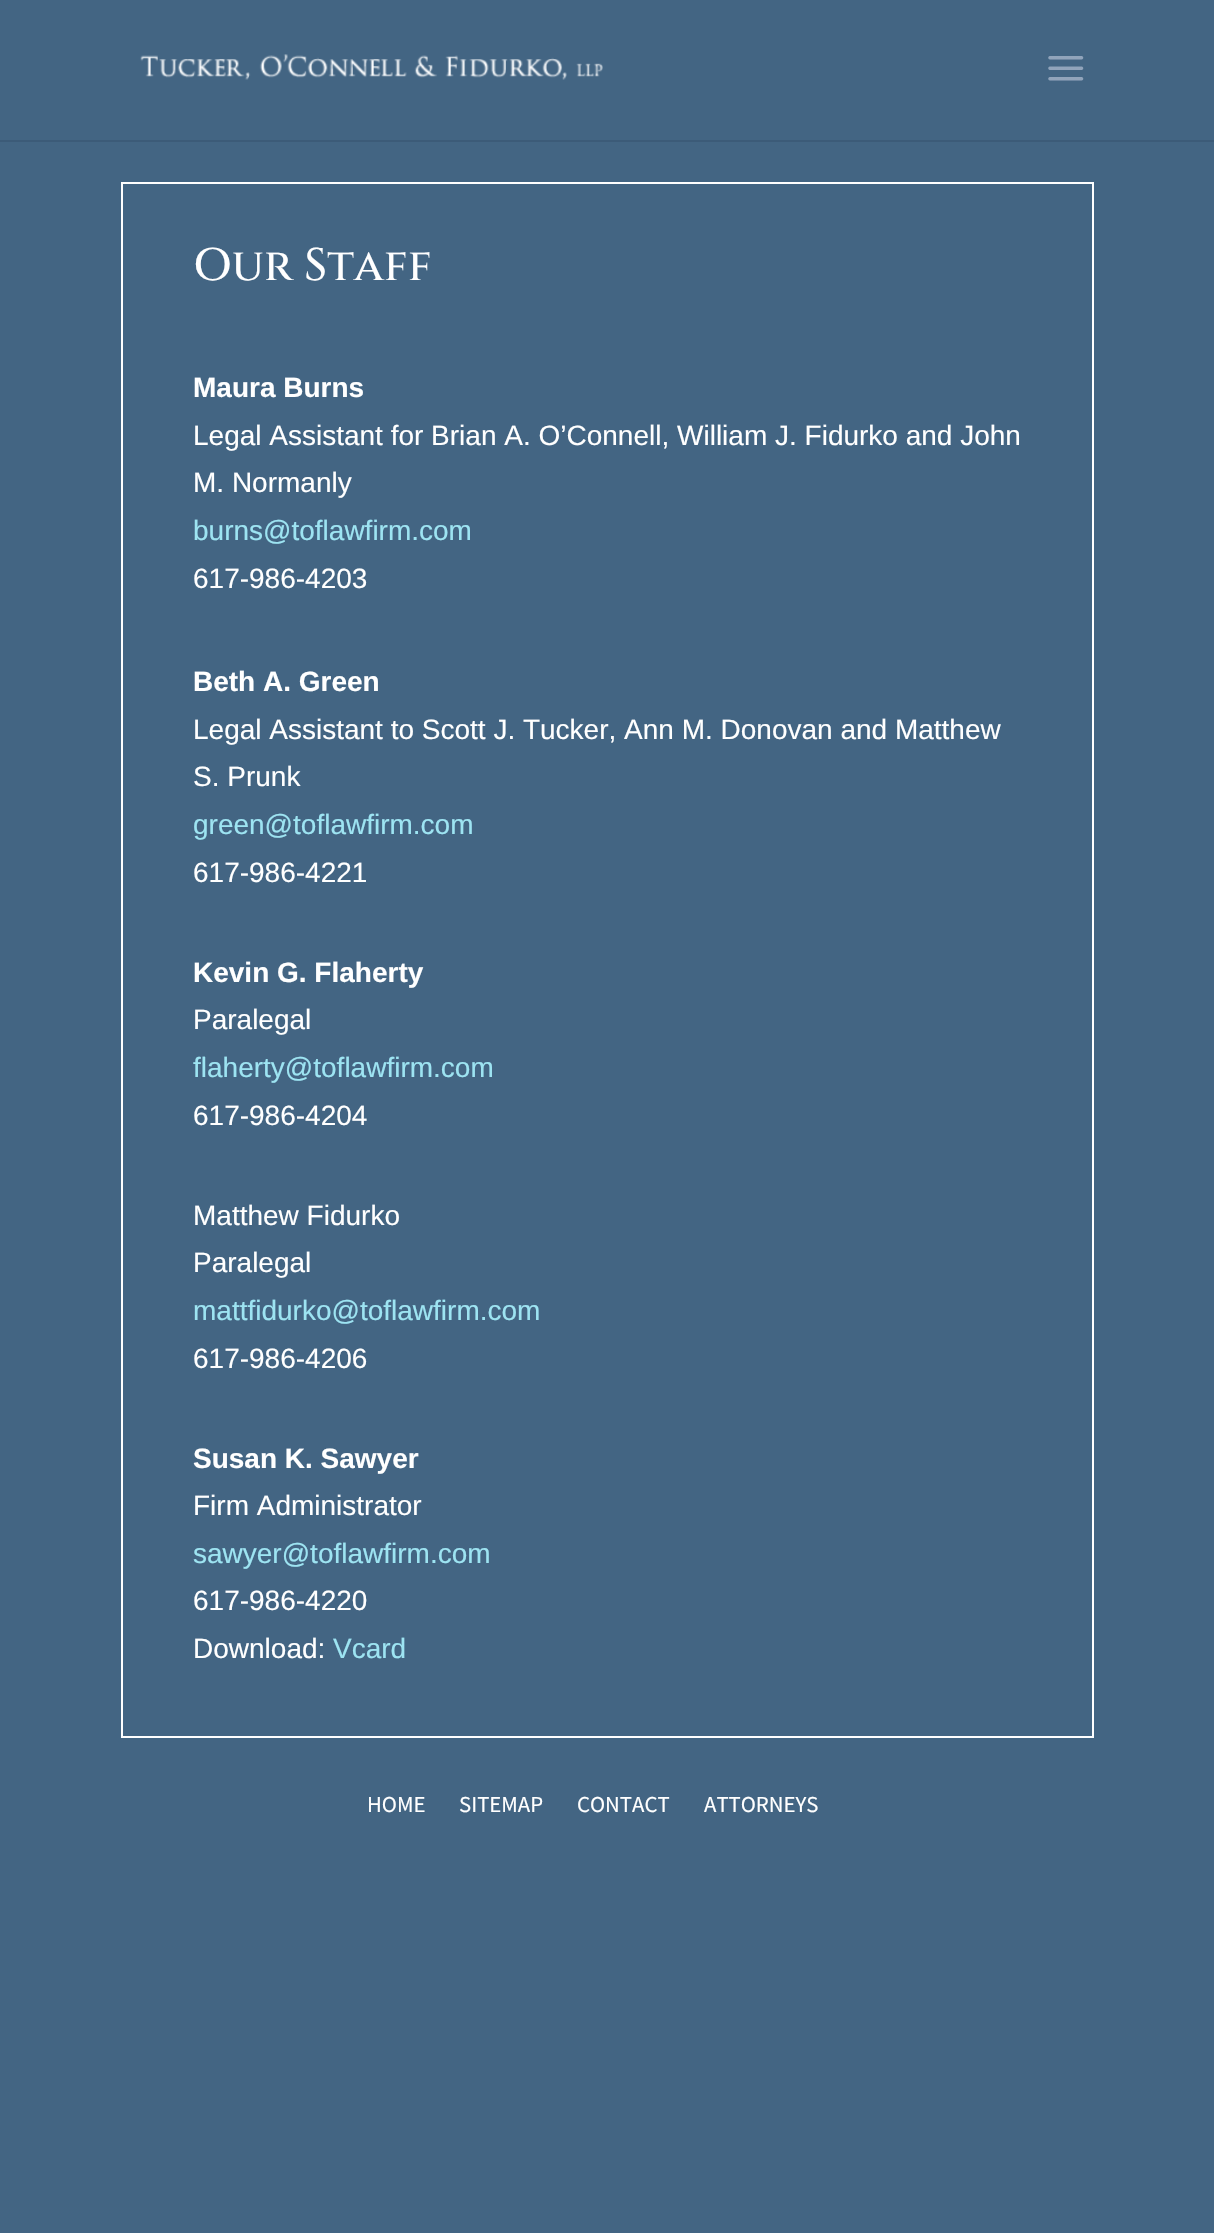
#include "include/core/SkBlurTypes.h"
#include "include/core/SkCanvas.h"
#include "include/core/SkData.h"
#include "include/core/SkFont.h"
#include "include/core/SkFontMgr.h"
#include "include/core/SkImage.h"
#include "include/core/SkMaskFilter.h"
#include "include/core/SkPaint.h"
#include "include/core/SkPathBuilder.h"
#include "include/core/SkTextBlob.h"
#include "include/effects/SkDashPathEffect.h"
#include "include/effects/SkGradientShader.h"
#include "include/utils/SkParsePath.h"

extern sk_sp<SkFontMgr> fontMgr;

static SkFont font(const char* family, int weight, float size, bool italic = false) {
    SkFontStyle style(weight, SkFontStyle::kNormal_Width,
        italic ? SkFontStyle::kItalic_Slant : SkFontStyle::kUpright_Slant);
    SkFont result(fontMgr->matchFamilyStyle(family, style), size);
    result.setSubpixel(true);
    return result;
}

static void drawLabel(SkCanvas* canvas, const char* s, float x, float y, const SkFont& font, SkColor color) {
    SkPaint ink(SkColor4f::FromColor(color));
    ink.setAntiAlias(true);
    canvas->drawString(s, x, y, font, ink);
}

static void drawPhoto(SkCanvas* canvas, const char* path, float x, float y, float w, float h) {
    auto image = SkImages::DeferredFromEncodedData(SkData::MakeFromFileName(path));
    canvas->drawImageRect(image, SkRect::MakeXYWH(x, y, w, h), SkSamplingOptions());
}

static SkPath parsePath(const char* data, bool evenOdd = false) {
    SkPath result = *SkParsePath::FromSVGString(data);
    if (evenOdd) result.setFillType(SkPathFillType::kEvenOdd);
    return result;
}

void draw(SkCanvas* canvas) {
    SkPaint paint;
    paint.setAntiAlias(true);
    canvas->clear(0xFF436583);
    paint.setColor(0xFF3C5B78);
    canvas->drawPath(parsePath("M0 140V142H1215V2H1214V140Z"), paint);
    drawPhoto(canvas, "assets/img1.png", 140, 54, 463, 26);
    drawPhoto(canvas, "assets/img2.png", 1048, 56, 36, 25);
    paint.setStroke(true);
    paint.setStrokeWidth(2);
    paint.setColor(0xFFFFFFFF);
    canvas->drawRect(SkRect::MakeXYWH(122, 183, 971, 1554), paint);
    SkFont font1 = font("Cinzel", 500, 45.5f);
    drawLabel(canvas, "Our Staff", 193, 280, font1, 0xFFFFFFFF);
    SkFont font2 = font("Liberation Sans", 700, 28);
    drawLabel(canvas, "Maura Burns", 193, 397, font2, 0xFFFFFFFF);
    SkFont font3 = font("Liberation Sans", 400, 28);
    drawLabel(canvas, "Legal Assistant for Brian A. O’Connell, William J. Fidurko and John", 193, 445, font3, 0xFFFFFFFF);
    drawLabel(canvas, "M. Normanly", 193, 492, font3, 0xFFFFFFFF);
    drawLabel(canvas, "burns@toflawfirm.com", 193, 540, font3, 0xFF9DE4F2);
    drawLabel(canvas, "617-986-4203", 193, 588, font3, 0xFFFFFFFF);
    drawLabel(canvas, "Beth A. Green", 193, 691, font2, 0xFFFFFFFF);
    drawLabel(canvas, "Legal Assistant to Scott J. Tucker, Ann M. Donovan and Matthew", 193, 739, font3, 0xFFFFFFFF);
    drawLabel(canvas, "S. Prunk", 193, 786, font3, 0xFFFFFFFF);
    drawLabel(canvas, "green@toflawfirm.com", 193, 834, font3, 0xFF9DE4F2);
    drawLabel(canvas, "617-986-4221", 193, 882, font3, 0xFFFFFFFF);
    drawLabel(canvas, "Kevin G. Flaherty", 193, 982, font2, 0xFFFFFFFF);
    drawLabel(canvas, "Paralegal", 193, 1029, font3, 0xFFFFFFFF);
    drawLabel(canvas, "flaherty@toflawfirm.com", 193, 1077, font3, 0xFF9DE4F2);
    drawLabel(canvas, "617-986-4204", 193, 1125, font3, 0xFFFFFFFF);
    drawLabel(canvas, "Matthew Fidurko", 193, 1225, font3, 0xFFFFFFFF);
    drawLabel(canvas, "Paralegal", 193, 1272, font3, 0xFFFFFFFF);
    drawLabel(canvas, "mattfidurko@toflawfirm.com", 193, 1320, font3, 0xFF9DE4F2);
    drawLabel(canvas, "617-986-4206", 193, 1368, font3, 0xFFFFFFFF);
    drawLabel(canvas, "Susan K. Sawyer", 193, 1468, font2, 0xFFFFFFFF);
    drawLabel(canvas, "Firm Administrator", 193, 1515, font3, 0xFFFFFFFF);
    drawLabel(canvas, "sawyer@toflawfirm.com", 193, 1563, font3, 0xFF9DE4F2);
    drawLabel(canvas, "617-986-4220", 193, 1610, font3, 0xFFFFFFFF);
    drawLabel(canvas, "Download:", 193, 1658, font3, 0xFFFFFFFF);
    drawLabel(canvas, "Vcard", 333, 1658, font3, 0xFF9DE4F2);
    SkFont font4 = font("Source Sans Pro", 400, 22.75f);
    drawLabel(canvas, "HOME", 367, 1812, font4, 0xFFFFFFFF);
    drawLabel(canvas, "SITEMAP", 459, 1812, font4, 0xFFFFFFFF);
    drawLabel(canvas, "CONTACT", 577, 1812, font4, 0xFFFFFFFF);
    drawLabel(canvas, "ATTORNEYS", 704, 1812, font4, 0xFFFFFFFF);
}
